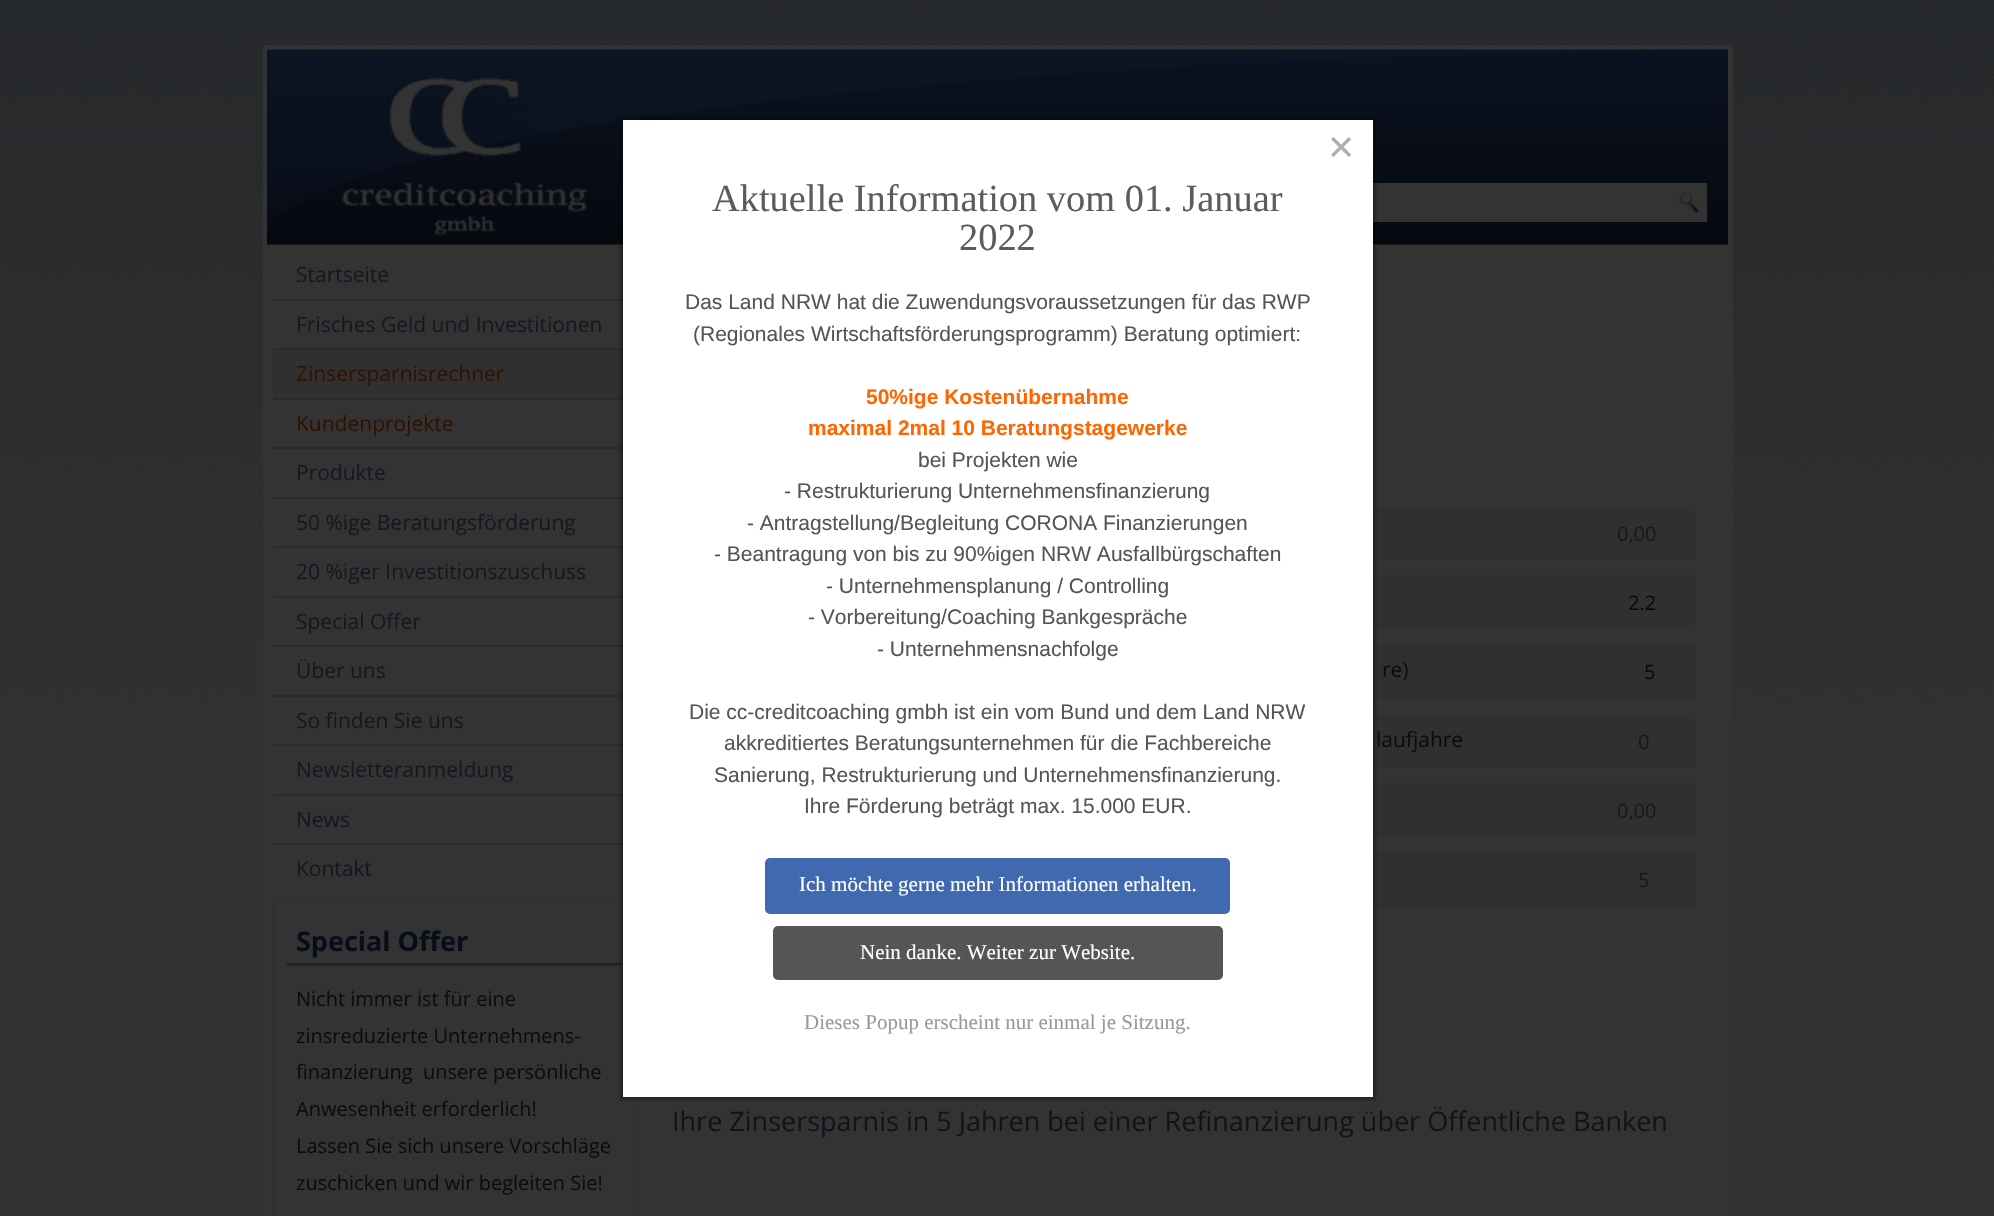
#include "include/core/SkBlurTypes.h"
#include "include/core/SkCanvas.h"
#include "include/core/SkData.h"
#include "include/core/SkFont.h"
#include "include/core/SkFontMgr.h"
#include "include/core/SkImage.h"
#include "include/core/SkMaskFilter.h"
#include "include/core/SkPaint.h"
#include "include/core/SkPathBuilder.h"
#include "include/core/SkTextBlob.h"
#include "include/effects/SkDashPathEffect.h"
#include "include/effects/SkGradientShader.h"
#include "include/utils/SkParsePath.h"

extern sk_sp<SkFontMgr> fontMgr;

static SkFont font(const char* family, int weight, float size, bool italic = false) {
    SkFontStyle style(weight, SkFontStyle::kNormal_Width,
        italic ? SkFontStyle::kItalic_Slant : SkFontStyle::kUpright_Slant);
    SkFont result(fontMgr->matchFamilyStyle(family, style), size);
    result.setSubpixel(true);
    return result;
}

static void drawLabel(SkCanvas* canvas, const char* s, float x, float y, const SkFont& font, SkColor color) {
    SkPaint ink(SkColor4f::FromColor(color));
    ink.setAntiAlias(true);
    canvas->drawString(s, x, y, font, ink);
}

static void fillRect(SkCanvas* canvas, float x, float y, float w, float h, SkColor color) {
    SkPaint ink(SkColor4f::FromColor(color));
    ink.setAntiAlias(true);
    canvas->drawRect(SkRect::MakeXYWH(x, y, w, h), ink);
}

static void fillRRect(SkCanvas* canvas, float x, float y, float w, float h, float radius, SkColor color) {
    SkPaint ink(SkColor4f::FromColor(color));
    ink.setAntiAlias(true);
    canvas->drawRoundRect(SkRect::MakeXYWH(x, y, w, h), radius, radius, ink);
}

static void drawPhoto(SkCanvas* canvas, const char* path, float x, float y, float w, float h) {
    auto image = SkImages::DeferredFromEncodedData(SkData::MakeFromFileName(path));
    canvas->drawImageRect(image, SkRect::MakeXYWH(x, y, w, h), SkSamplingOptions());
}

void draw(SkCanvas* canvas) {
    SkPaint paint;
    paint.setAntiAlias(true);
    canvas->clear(0xFFFFFFFF);
    drawPhoto(canvas, "assets/img1.png", 0, 0, 1994, 1216);
    fillRect(canvas, 263, 45, 1470, 1171, 0xFF333333);
    drawPhoto(canvas, "assets/img2.png", 267, 49, 1461, 196);
    fillRect(canvas, 1373, 183, 334, 39, 0xFF333333);
    fillRect(canvas, 273, 299, 350, 2, 0xFF2A2B2C);
    fillRect(canvas, 273, 348, 350, 2, 0xFF2A2B2C);
    fillRect(canvas, 273, 350, 350, 48, 0xFF303031);
    fillRect(canvas, 273, 398, 350, 2, 0xFF2A2B2C);
    fillRect(canvas, 273, 447, 350, 2, 0xFF2A2B2C);
    fillRect(canvas, 273, 497, 350, 2, 0xFF2A2B2C);
    fillRect(canvas, 273, 546, 350, 2, 0xFF2A2B2C);
    fillRect(canvas, 273, 596, 350, 2, 0xFF2A2B2C);
    fillRect(canvas, 273, 645, 350, 2, 0xFF2A2B2C);
    fillRect(canvas, 273, 695, 350, 2, 0xFF2A2B2C);
    fillRect(canvas, 273, 744, 350, 2, 0xFF2A2B2C);
    fillRect(canvas, 273, 794, 350, 2, 0xFF2A2B2C);
    fillRect(canvas, 273, 843, 350, 2, 0xFF2A2B2C);
    paint.setStroke(true);
    paint.setStrokeWidth(2);
    paint.setColor(0xFF2F3031);
    canvas->drawRect(SkRect::MakeXYWH(273, 900, 364, 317), paint);
    fillRect(canvas, 287, 965, 334, 1, 0xFF292929);
    fillRect(canvas, 287, 963, 334, 2, 0xFF222222);
    fillRect(canvas, 1373, 506, 322, 54, 0xFF303030);
    fillRect(canvas, 1373, 575, 322, 55, 0xFF303030);
    fillRect(canvas, 1373, 645, 322, 54, 0xFF303030);
    fillRect(canvas, 1373, 714, 322, 54, 0xFF303030);
    fillRect(canvas, 1373, 783, 322, 54, 0xFF303030);
    fillRect(canvas, 1373, 852, 322, 56, 0xFF303030);
    paint.setStroke(false);
    paint.setColor(0x4D000001);
    paint.setMaskFilter(SkMaskFilter::MakeBlur(kNormal_SkBlurStyle, 1.5f));
    canvas->drawRect(SkRect::MakeXYWH(620, 117, 756, 983), paint);
    paint.setMaskFilter(nullptr);
    fillRect(canvas, 623, 120, 750, 977, 0xFFFFFFFF);
    SkFont font1 = font("Liberation Sans", 400, 45);
    drawLabel(canvas, "×", 1328, 162, font1, 0xFFAEAEAE);
    SkFont font2 = font("Liberation Serif", 400, 38.4f);
    drawLabel(canvas, "Aktuelle Information vom 01. Januar", 712, 211, font2, 0xFF5C5C5C);
    drawLabel(canvas, "2022", 959, 250, font2, 0xFF5C5C5C);
    SkFont font3 = font("Liberation Sans", 400, 21);
    drawLabel(canvas, "Das Land NRW hat die Zuwendungsvoraussetzungen für das RWP", 685, 309, font3, 0xFF555555);
    drawLabel(canvas, "(Regionales Wirtschaftsförderungsprogramm) Beratung optimiert:", 693, 341, font3, 0xFF555555);
    SkFont font4 = font("Liberation Sans", 700, 21);
    drawLabel(canvas, "50%ige Kostenübernahme", 866, 404, font4, 0xFFFF6600);
    drawLabel(canvas, "maximal 2mal 10 Beratungstagewerke", 808, 435, font4, 0xFFFF6600);
    drawLabel(canvas, "bei Projekten wie", 918, 467, font3, 0xFF555555);
    drawLabel(canvas, "- Restrukturierung Unternehmensfinanzierung", 784, 498, font3, 0xFF555555);
    drawLabel(canvas, "- Antragstellung/Begleitung CORONA Finanzierungen", 747, 530, font3, 0xFF555555);
    drawLabel(canvas, "- Beantragung von bis zu 90%igen NRW Ausfallbürgschaften", 714, 561, font3, 0xFF555555);
    drawLabel(canvas, "- Unternehmensplanung / Controlling", 826, 593, font3, 0xFF555555);
    drawLabel(canvas, "- Vorbereitung/Coaching Bankgespräche", 808, 624, font3, 0xFF555555);
    drawLabel(canvas, "- Unternehmensnachfolge", 877, 656, font3, 0xFF555555);
    drawLabel(canvas, "Die cc-creditcoaching gmbh ist ein vom Bund und dem Land NRW", 689, 719, font3, 0xFF555555);
    drawLabel(canvas, "akkreditiertes Beratungsunternehmen für die Fachbereiche", 724, 750, font3, 0xFF555555);
    drawLabel(canvas, "Sanierung, Restrukturierung und Unternehmensfinanzierung.", 714, 782, font3, 0xFF555555);
    drawLabel(canvas, "Ihre Förderung beträgt max. 15.000 EUR.", 804, 813, font3, 0xFF555555);
    fillRRect(canvas, 765, 858, 465, 56, 5, 0xFF4169AF);
    SkFont font5 = font("Liberation Serif", 400, 21);
    drawLabel(canvas, "Ich möchte gerne mehr Informationen erhalten.", 799, 891, font5, 0xFFFFFFFF);
    fillRRect(canvas, 773, 926, 450, 54, 5, 0xFF555555);
    drawLabel(canvas, "Nein danke. Weiter zur Website.", 860, 959, font5, 0xFFFFFFFF);
    drawLabel(canvas, "Dieses Popup erscheint nur einmal je Sitzung.", 804, 1029, font5, 0xFF999999);
    drawPhoto(canvas, "assets/img3.png", 341, 77, 248, 159);
    drawPhoto(canvas, "assets/img4.png", 1678, 191, 22, 23);
    SkFont font6 = font("Open Sans", 400, 21);
    drawLabel(canvas, "Startseite", 296, 282, font6, 0xFF131920);
    drawLabel(canvas, "Frisches Geld und Investitionen", 296, 332, font6, 0xFF131920);
    drawLabel(canvas, "Zinsersparnisrechner", 296, 381, font6, 0xFF321101);
    drawLabel(canvas, "Kundenprojekte", 296, 431, font6, 0xFF321101);
    drawLabel(canvas, "Produkte", 296, 480, font6, 0xFF131920);
    drawLabel(canvas, "50 %ige Beratungsförderung", 296, 530, font6, 0xFF131920);
    drawLabel(canvas, "20 %iger Investitionszuschuss", 296, 579, font6, 0xFF131920);
    drawLabel(canvas, "Special Offer", 296, 629, font6, 0xFF131920);
    drawLabel(canvas, "Über uns", 296, 678, font6, 0xFF131920);
    drawLabel(canvas, "So finden Sie uns", 296, 728, font6, 0xFF131920);
    drawLabel(canvas, "Newsletteranmeldung", 296, 777, font6, 0xFF131920);
    drawLabel(canvas, "News", 296, 827, font6, 0xFF131920);
    drawLabel(canvas, "Kontakt", 296, 876, font6, 0xFF131920);
    SkFont font7 = font("Open Sans", 700, 27);
    drawLabel(canvas, "Special Offer", 296, 951, font7, 0xFF080E18);
    SkFont font8 = font("Open Sans", 400, 20);
    drawLabel(canvas, "Nicht immer ist für eine", 296, 1006, font8, 0xFF0A0D10);
    drawLabel(canvas, "zinsreduzierte Unternehmens-", 296, 1043, font8, 0xFF0A0D10);
    drawLabel(canvas, "finanzierung  unsere persönliche", 296, 1079, font8, 0xFF0A0D10);
    drawLabel(canvas, "Anwesenheit erforderlich!", 296, 1116, font8, 0xFF0A0D10);
    drawLabel(canvas, "Lassen Sie sich unsere Vorschläge", 296, 1153, font8, 0xFF0A0D10);
    drawLabel(canvas, "zuschicken und wir begleiten Sie!", 296, 1190, font8, 0xFF0A0D10);
    drawLabel(canvas, "0,00", 1617, 541, font8, 0xFF171717);
    drawLabel(canvas, "2.2", 1628, 610, font8, 0xFF0A0A0A);
    drawLabel(canvas, "re)", 1382, 677, font6, 0xFF0A0D10);
    drawLabel(canvas, "5", 1644, 679, font8, 0xFF0A0A0A);
    drawLabel(canvas, "laufjahre", 1376, 747, font6, 0xFF0A0D10);
    drawLabel(canvas, "0", 1638, 749, font8, 0xFF131920);
    drawLabel(canvas, "0,00", 1617, 818, font8, 0xFF171717);
    drawLabel(canvas, "5", 1638, 887, font8, 0xFF131920);
    SkFont font9 = font("Open Sans", 400, 27);
    drawLabel(canvas, "Ihre Zinsersparnis in 5 Jahren bei einer Refinanzierung über Öffentliche Banken", 672, 1131, font9, 0xFF10151A);
}
